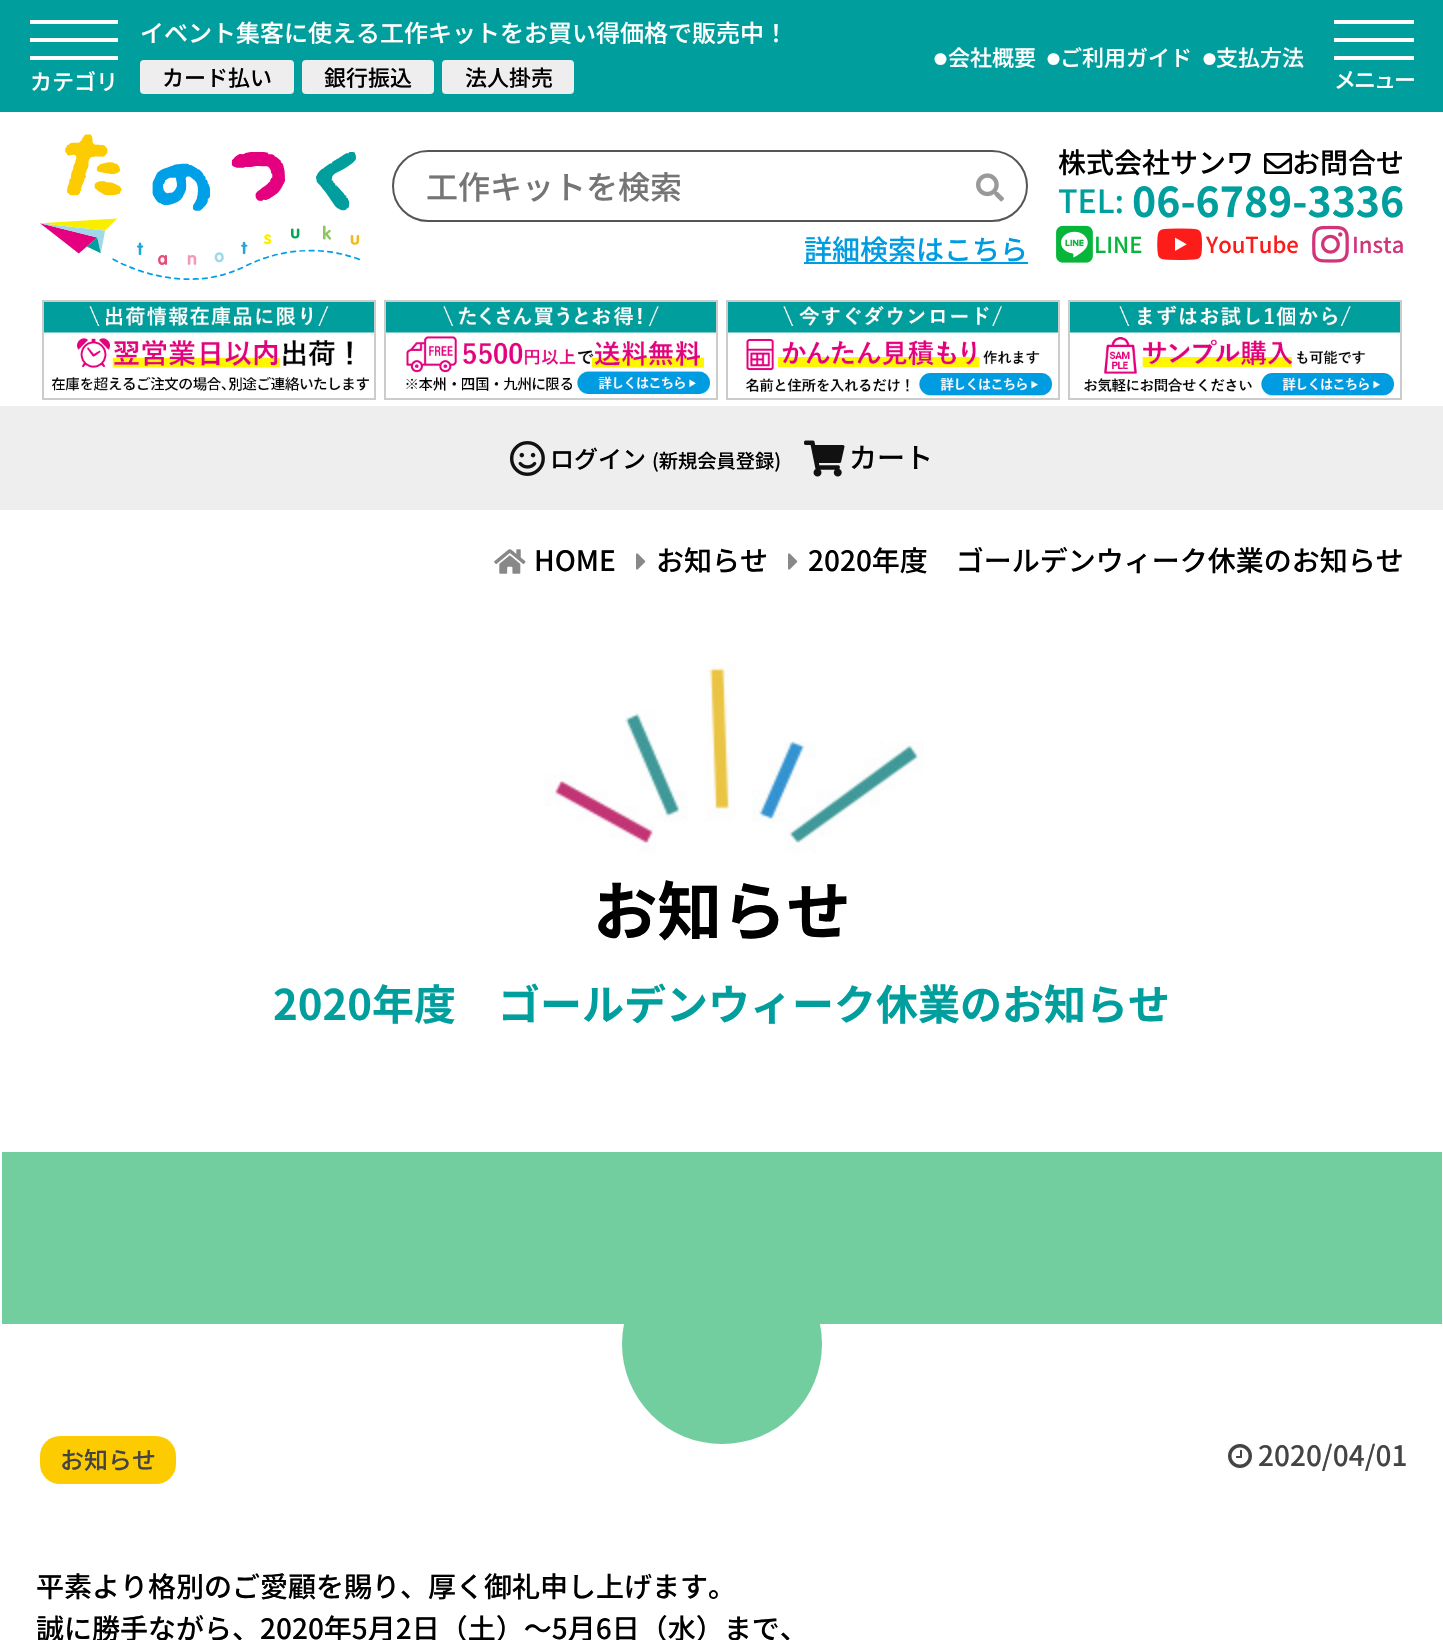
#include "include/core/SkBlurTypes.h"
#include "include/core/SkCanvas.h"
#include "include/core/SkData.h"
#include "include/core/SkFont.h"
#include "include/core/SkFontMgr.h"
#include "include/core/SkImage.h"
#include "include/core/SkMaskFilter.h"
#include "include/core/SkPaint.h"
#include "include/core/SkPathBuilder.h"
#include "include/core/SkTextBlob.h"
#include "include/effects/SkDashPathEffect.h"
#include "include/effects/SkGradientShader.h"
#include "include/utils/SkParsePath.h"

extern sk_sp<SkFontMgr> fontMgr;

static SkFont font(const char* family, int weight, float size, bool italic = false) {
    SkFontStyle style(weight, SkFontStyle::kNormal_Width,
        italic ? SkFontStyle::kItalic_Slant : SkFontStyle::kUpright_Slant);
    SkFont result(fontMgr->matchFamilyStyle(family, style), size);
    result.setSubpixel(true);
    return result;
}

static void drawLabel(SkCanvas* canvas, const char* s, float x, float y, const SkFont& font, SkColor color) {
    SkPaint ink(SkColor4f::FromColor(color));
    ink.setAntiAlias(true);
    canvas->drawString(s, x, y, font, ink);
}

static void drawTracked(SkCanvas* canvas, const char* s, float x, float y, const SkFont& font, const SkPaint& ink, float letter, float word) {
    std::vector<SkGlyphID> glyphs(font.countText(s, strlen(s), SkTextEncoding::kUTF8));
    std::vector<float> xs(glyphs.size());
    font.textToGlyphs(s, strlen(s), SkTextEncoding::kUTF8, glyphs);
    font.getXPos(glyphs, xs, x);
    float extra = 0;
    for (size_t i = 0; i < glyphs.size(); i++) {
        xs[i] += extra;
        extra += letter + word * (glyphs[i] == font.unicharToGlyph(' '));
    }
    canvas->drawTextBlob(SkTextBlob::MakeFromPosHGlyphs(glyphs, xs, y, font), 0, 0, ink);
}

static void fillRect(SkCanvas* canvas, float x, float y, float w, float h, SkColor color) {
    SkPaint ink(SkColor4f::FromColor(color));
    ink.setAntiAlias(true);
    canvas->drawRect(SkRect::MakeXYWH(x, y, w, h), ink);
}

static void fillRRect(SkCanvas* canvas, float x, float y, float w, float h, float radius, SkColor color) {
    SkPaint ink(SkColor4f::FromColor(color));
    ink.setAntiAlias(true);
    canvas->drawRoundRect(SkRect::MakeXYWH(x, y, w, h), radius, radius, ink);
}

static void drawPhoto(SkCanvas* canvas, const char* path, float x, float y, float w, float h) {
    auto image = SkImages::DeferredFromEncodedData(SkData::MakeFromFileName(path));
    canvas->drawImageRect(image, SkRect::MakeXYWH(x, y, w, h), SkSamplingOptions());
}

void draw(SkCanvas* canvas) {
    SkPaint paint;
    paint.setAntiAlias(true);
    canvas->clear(0xFFFFFFFF);
    fillRect(canvas, 0, 0, 1443, 112, 0xFF009E9D);
    fillRect(canvas, 30, 20, 88, 4, 0xFFFFFFFF);
    fillRect(canvas, 30, 38, 88, 4, 0xFFFFFFFF);
    fillRect(canvas, 30, 56, 88, 4, 0xFFFFFFFF);
    SkFont font1 = font("Noto Sans JP", 500, 22);
    drawLabel(canvas, "カテゴリ", 30, 90, font1, 0xFFFFFFFF);
    SkFont font2 = font("Noto Sans JP", 500, 24);
    drawLabel(canvas, "イベント集客に使える工作キットをお買い得価格で販売中！", 140, 42, font2, 0xFFFFFFFF);
    fillRRect(canvas, 140, 60, 154, 34, 4, 0xFFEEEEEE);
    drawLabel(canvas, "カード払い", 162, 86, font1, 0xFF000000);
    fillRRect(canvas, 302, 60, 132, 34, 4, 0xFFEEEEEE);
    drawLabel(canvas, "銀行振込", 324, 86, font1, 0xFF000000);
    fillRRect(canvas, 442, 60, 132, 34, 4, 0xFFEEEEEE);
    drawLabel(canvas, "法人掛売", 465, 86, font1, 0xFF000000);
    SkFont font3 = font("Noto Sans JP", 500, 13);
    drawLabel(canvas, "●", 934, 64, font3, 0xFFFFFFFF);
    drawLabel(canvas, "会社概要", 948, 66, font1, 0xFFFFFFFF);
    drawLabel(canvas, "●", 1047, 64, font3, 0xFFFFFFFF);
    drawLabel(canvas, "ご利用ガイド", 1060, 66, font1, 0xFFFFFFFF);
    drawLabel(canvas, "●", 1203, 64, font3, 0xFFFFFFFF);
    drawLabel(canvas, "支払方法", 1216, 66, font1, 0xFFFFFFFF);
    fillRect(canvas, 1334, 20, 80, 4, 0xFFFFFFFF);
    fillRect(canvas, 1334, 38, 80, 4, 0xFFFFFFFF);
    fillRect(canvas, 1334, 56, 80, 4, 0xFFFFFFFF);
    paint.setColor(0xFFFFFFFF);
    drawTracked(canvas, "メニュー", 1334, 88, font1, paint, -2, 0);
    drawPhoto(canvas, "assets/img1.png", 40, 134, 320, 146);
    paint.setStroke(true);
    paint.setStrokeWidth(2);
    paint.setColor(0xFF555555);
    canvas->drawRoundRect(SkRect::MakeXYWH(393, 151, 634, 70), 35, 35, paint);
    SkFont font4 = font("Noto Sans JP", 500, 32);
    drawLabel(canvas, "工作キットを検索", 426, 199, font4, 0xFF757575);
    drawPhoto(canvas, "assets/img2.png", 976, 173, 28, 29);
    fillRect(canvas, 804, 262, 224, 2, 0xFF009CE1);
    SkFont font5 = font("Noto Sans JP", 500, 28);
    drawLabel(canvas, "詳細検索はこちら", 804, 260, font5, 0xFF009CE1);
    drawLabel(canvas, "株式会社サンワ", 1058, 173, font5, 0xFF000000);
    drawPhoto(canvas, "assets/img3.png", 1264, 153, 28, 21);
    drawLabel(canvas, "お問合せ", 1292, 173, font5, 0xFF000000);
    drawLabel(canvas, "TEL:", 1058, 213, font4, 0xFF009E9D);
    SkFont font6 = font("Noto Sans JP", 700, 41);
    drawLabel(canvas, "06-6789-3336", 1132, 217, font6, 0xFF009E9D);
    drawPhoto(canvas, "assets/img4.png", 1056, 225, 37, 38);
    drawLabel(canvas, "LINE", 1094, 253, font1, 0xFF07B53B);
    drawPhoto(canvas, "assets/img5.png", 1157, 228, 45, 32);
    drawLabel(canvas, "YouTube", 1206, 253, font1, 0xFFFC1C19);
    drawPhoto(canvas, "assets/img6.png", 1312, 225, 37, 38);
    drawLabel(canvas, "Insta", 1352, 253, font1, 0xFFD13579);
    paint.setColor(0xFFCCCCCC);
    canvas->drawRect(SkRect::MakeXYWH(43, 301, 332, 98), paint);
    drawPhoto(canvas, "assets/img7.png", 44, 302, 330, 89);
    canvas->drawRect(SkRect::MakeXYWH(385, 301, 332, 98), paint);
    drawPhoto(canvas, "assets/img8.png", 386, 302, 330, 95);
    canvas->drawRect(SkRect::MakeXYWH(727, 301, 332, 98), paint);
    drawPhoto(canvas, "assets/img9.png", 728, 302, 330, 94);
    canvas->drawRect(SkRect::MakeXYWH(1069, 301, 332, 98), paint);
    drawPhoto(canvas, "assets/img10.png", 1070, 302, 330, 94);
    fillRect(canvas, 0, 406, 1443, 104, 0xFFEEEEEE);
    drawPhoto(canvas, "assets/img11.png", 510, 441, 35, 35);
    drawLabel(canvas, "ログイン", 550, 468, font2, 0xFF000000);
    SkFont font7 = font("Noto Sans JP", 500, 19.25f);
    drawLabel(canvas, "(新規会員登録)", 652, 468, font7, 0xFF000000);
    drawPhoto(canvas, "assets/img12.png", 804, 440, 41, 37);
    drawLabel(canvas, "カート", 849, 468, font5, 0xFF000000);
    drawPhoto(canvas, "assets/img13.png", 494, 549, 32, 25);
    drawLabel(canvas, "HOME", 534, 571, font5, 0xFF000000);
    drawPhoto(canvas, "assets/img14.png", 636, 553, 10, 17);
    drawLabel(canvas, "お知らせ", 656, 571, font5, 0xFF000000);
    drawPhoto(canvas, "assets/img14.png", 788, 553, 10, 17);
    drawLabel(canvas, "2020年度　ゴールデンウィーク休業のお知らせ", 808, 571, font5, 0xFF000000);
    drawPhoto(canvas, "assets/img15.png", 544, 664, 380, 190);
    SkFont font8 = font("Noto Sans JP", 700, 64.5f);
    drawLabel(canvas, "お知らせ", 593, 935, font8, 0xFF000000);
    SkFont font9 = font("Noto Sans JP", 700, 42);
    drawLabel(canvas, "2020年度　ゴールデンウィーク休業のお知らせ", 273, 1020, font9, 0xFF009E9D);
    fillRect(canvas, 2, 1152, 1440, 172, 0xFF72CE9F);
    paint.setStroke(false);
    paint.setColor(0xFF72CE9F);
    canvas->drawCircle(722, 1344, 100, paint);
    fillRRect(canvas, 40, 1436, 136, 48, 20, 0xFFFCCB00);
    drawLabel(canvas, "お知らせ", 60, 1469, font2, 0xFF444444);
    drawPhoto(canvas, "assets/img16.png", 1228, 1444, 24, 24);
    drawLabel(canvas, "2020/04/01", 1258, 1466, font5, 0xFF444444);
    drawLabel(canvas, "平素より格別のご愛顧を賜り、厚く御礼申し上げます。", 36, 1597, font5, 0xFF000000);
    drawLabel(canvas, "誠に勝手ながら、2020年5月2日（土）～5月6日（水）まで、", 36, 1639, font5, 0xFF000000);
}
